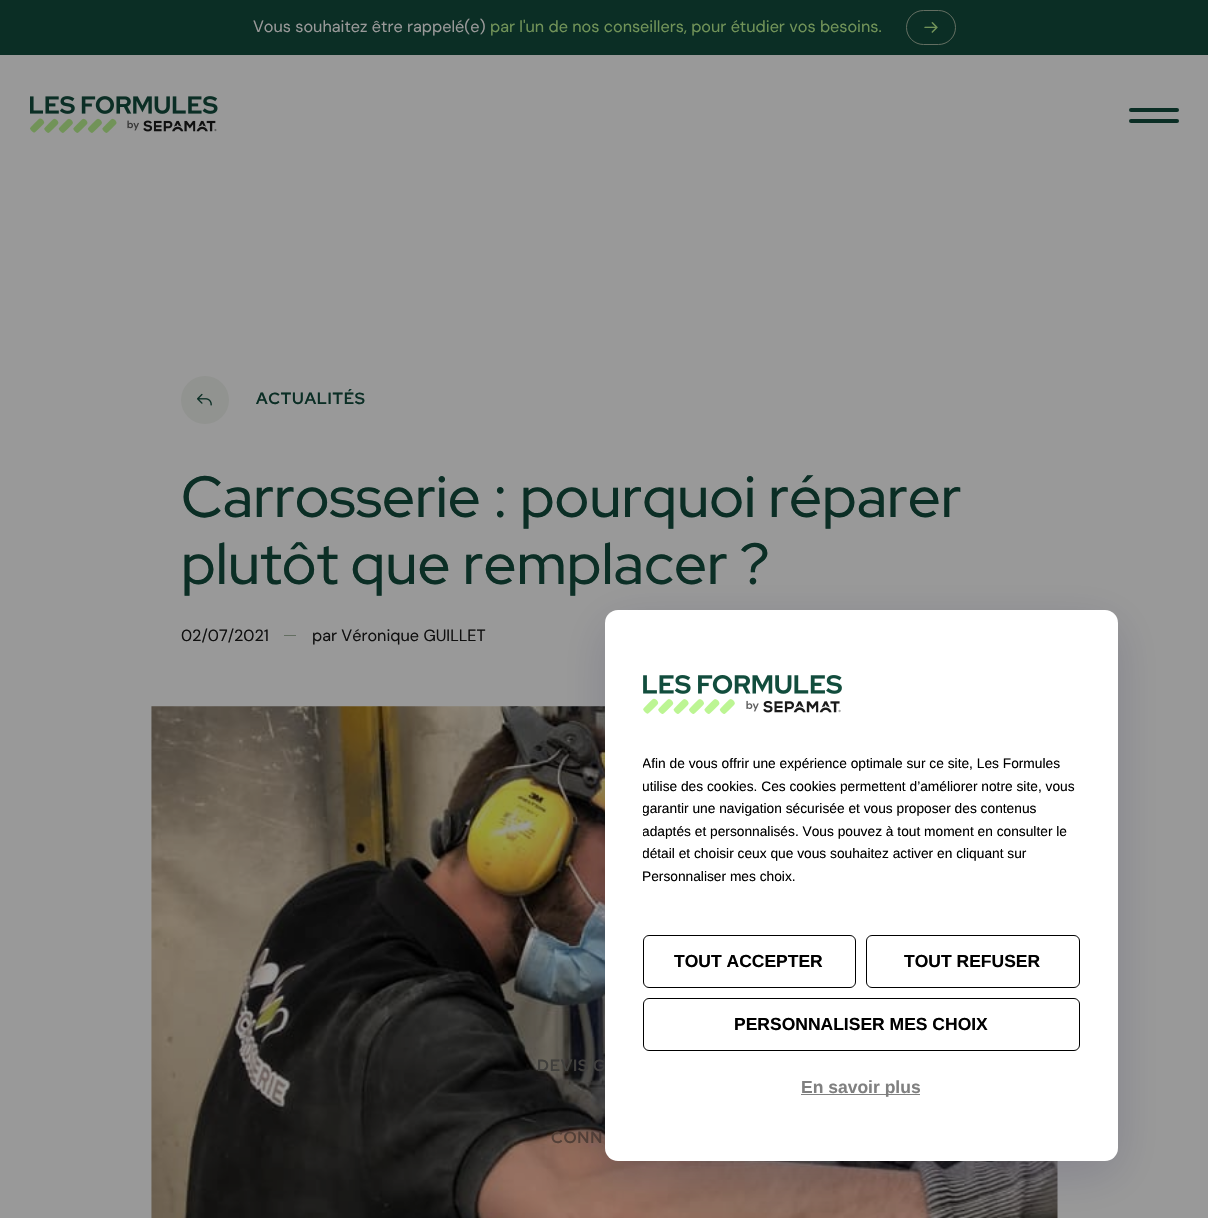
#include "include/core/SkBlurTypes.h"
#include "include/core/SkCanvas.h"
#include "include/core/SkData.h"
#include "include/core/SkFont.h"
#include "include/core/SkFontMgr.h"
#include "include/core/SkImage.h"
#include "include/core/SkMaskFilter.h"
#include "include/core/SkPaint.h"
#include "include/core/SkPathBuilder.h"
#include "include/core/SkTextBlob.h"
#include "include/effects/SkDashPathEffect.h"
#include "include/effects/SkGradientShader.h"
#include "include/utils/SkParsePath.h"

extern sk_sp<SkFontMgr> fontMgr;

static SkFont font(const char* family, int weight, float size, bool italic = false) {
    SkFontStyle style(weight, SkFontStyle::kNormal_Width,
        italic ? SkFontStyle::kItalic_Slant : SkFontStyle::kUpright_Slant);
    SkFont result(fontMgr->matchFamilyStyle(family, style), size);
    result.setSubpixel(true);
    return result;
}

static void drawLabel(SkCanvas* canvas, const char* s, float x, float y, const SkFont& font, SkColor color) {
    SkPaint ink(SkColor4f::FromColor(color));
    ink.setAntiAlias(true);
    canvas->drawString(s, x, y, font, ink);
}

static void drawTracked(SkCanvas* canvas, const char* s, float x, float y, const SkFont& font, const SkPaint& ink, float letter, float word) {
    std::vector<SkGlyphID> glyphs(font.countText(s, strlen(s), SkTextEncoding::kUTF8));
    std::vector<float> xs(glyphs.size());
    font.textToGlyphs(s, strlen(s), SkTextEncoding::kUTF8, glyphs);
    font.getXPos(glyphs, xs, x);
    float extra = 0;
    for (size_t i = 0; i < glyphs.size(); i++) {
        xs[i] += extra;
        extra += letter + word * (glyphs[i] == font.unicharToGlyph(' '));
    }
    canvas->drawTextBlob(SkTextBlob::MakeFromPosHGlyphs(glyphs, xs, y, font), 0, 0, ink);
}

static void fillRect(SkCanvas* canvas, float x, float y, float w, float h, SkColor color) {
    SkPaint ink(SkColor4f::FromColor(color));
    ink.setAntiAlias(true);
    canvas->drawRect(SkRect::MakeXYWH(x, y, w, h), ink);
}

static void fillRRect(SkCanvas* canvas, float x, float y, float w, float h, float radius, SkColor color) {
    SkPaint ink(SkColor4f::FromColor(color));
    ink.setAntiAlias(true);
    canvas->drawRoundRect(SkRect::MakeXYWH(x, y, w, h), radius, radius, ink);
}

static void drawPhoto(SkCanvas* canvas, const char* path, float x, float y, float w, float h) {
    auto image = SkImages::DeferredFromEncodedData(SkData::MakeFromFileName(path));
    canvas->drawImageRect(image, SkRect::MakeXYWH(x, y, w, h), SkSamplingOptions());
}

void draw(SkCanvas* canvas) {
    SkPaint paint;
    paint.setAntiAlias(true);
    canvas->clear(0xFF999999);
    {
        const SkColor colors[] = {0x000B2E25, 0xFF0B2E25, 0xFF0B2E25, 0x000B2E25};
        const float stops[] = {0, 0, 0.01f, 1};
        const SkPoint ends[] = {{0, 0}, {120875, 0}};
        paint.setShader(SkGradientShader::MakeLinear(ends, colors, stops, 4, SkTileMode::kClamp));
        paint.setAlpha(255);
    }
    canvas->drawRect(SkRect::MakeXYWH(0, 0, 1208, 55), paint);
    SkFont font1 = font("DM Sans", 400, 16.25f);
    drawLabel(canvas, "Vous souhaitez être rappelé(e)", 253, 32, font1, 0xFF999999);
    drawLabel(canvas, "par l'un de nos conseillers, pour étudier vos besoins.", 490, 32, font1, 0xFF719358);
    paint.setStroke(true);
    paint.setStrokeWidth(1);
    paint.setShader(nullptr);
    paint.setColor(0xFF636E61);
    canvas->drawRoundRect(SkRect::MakeXYWH(906.5f, 10.5f, 49, 34), 17, 17, paint);
    SkFont font2 = font("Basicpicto", 400, 16);
    paint.setStroke(false);
    paint.setColor(0xFF719358);
    drawTracked(canvas, "≥", 923, 34, font2, paint, 1, 0);
    paint.setColor(0xFF919390);
    canvas->drawCircle(205, 400, 24, paint);
    drawPhoto(canvas, "assets/img1.png", 197, 393, 15, 13);
    SkFont font3 = font("Red Hat Display", 700, 16.25f);
    paint.setColor(0xFF0B2E25);
    drawTracked(canvas, "ACTUALITÉS", 256, 404, font3, paint, 0.75f, 0);
    SkFont font4 = font("Red Hat Display", 500, 58);
    drawLabel(canvas, "Carrosserie : pourquoi réparer", 181, 517, font4, 0xFF0B2E25);
    drawLabel(canvas, "plutôt que remplacer ?", 181, 584, font4, 0xFF0B2E25);
    drawLabel(canvas, "02/07/2021", 181, 641, font1, 0xFF101010);
    fillRect(canvas, 284, 635, 12, 1, 0xFF636E61);
    drawLabel(canvas, "par Véronique GUILLET", 312, 641, font1, 0xFF101010);
    drawPhoto(canvas, "assets/img2.png", 151, 706, 907, 512);
    drawPhoto(canvas, "assets/img3.png", 30, 96, 188, 37);
    fillRRect(canvas, 1129, 108, 50, 4, 2, 0xFF0B2E25);
    fillRRect(canvas, 1129, 119, 50, 4, 2, 0xFF0B2E25);
    paint.setColor(0xFF403F3C);
    drawTracked(canvas, "DEVIS G", 537, 1071, font3, paint, 0.75f, 0);
    paint.setColor(0xFF534037);
    drawTracked(canvas, "CONN", 551, 1143, font3, paint, 0.75f, 0);
    paint.setColor(0x260F0544);
    paint.setMaskFilter(SkMaskFilter::MakeBlur(kNormal_SkBlurStyle, 25));
    canvas->drawRoundRect(SkRect::MakeXYWH(605, 623, 513, 551), 13, 13, paint);
    paint.setMaskFilter(nullptr);
    fillRRect(canvas, 605, 610, 513, 551, 13, 0xFFFFFFFF);
    drawPhoto(canvas, "assets/img4.png", 643, 675, 199, 39);
    canvas->save();
    canvas->clipRect(SkRect::MakeXYWH(643, 658, 437, 230));
    SkFont font5 = font("Liberation Sans", 400, 13.75f);
    drawLabel(canvas, "Afin de vous offrir une expérience optimale sur ce site, Les Formules", 642, 768, font5, 0xFF000000);
    drawLabel(canvas, "utilise des cookies. Ces cookies permettent d’améliorer notre site, vous", 642, 791, font5, 0xFF000000);
    drawLabel(canvas, "garantir une navigation sécurisée et vous proposer des contenus", 642, 813, font5, 0xFF000000);
    drawLabel(canvas, "adaptés et personnalisés. Vous pouvez à tout moment en consulter le", 642, 836, font5, 0xFF000000);
    drawLabel(canvas, "détail et choisir ceux que vous souhaitez activer en cliquant sur", 642, 858, font5, 0xFF000000);
    canvas->restore();
    drawLabel(canvas, "Personnaliser mes choix.", 642, 881, font5, 0xFF000000);
    paint.setStroke(true);
    paint.setColor(0xFF000000);
    canvas->drawRoundRect(SkRect::MakeXYWH(643.5f, 935.5f, 212, 52), 5.5f, 5.5f, paint);
    SkFont font6 = font("Liberation Sans", 700, 17.5f);
    drawLabel(canvas, "TOUT ACCEPTER", 674, 967, font6, 0xFF000000);
    canvas->drawRoundRect(SkRect::MakeXYWH(866.5f, 935.5f, 213, 52), 5.5f, 5.5f, paint);
    drawLabel(canvas, "TOUT REFUSER", 904, 967, font6, 0xFF000000);
    canvas->drawRoundRect(SkRect::MakeXYWH(643.5f, 998.5f, 436, 52), 5.5f, 5.5f, paint);
    drawLabel(canvas, "PERSONNALISER MES CHOIX", 734, 1030, font6, 0xFF000000);
    fillRect(canvas, 801, 1094, 119, 1, 0xFF808080);
    drawLabel(canvas, "En savoir plus", 801, 1093, font6, 0xFF808080);
}
